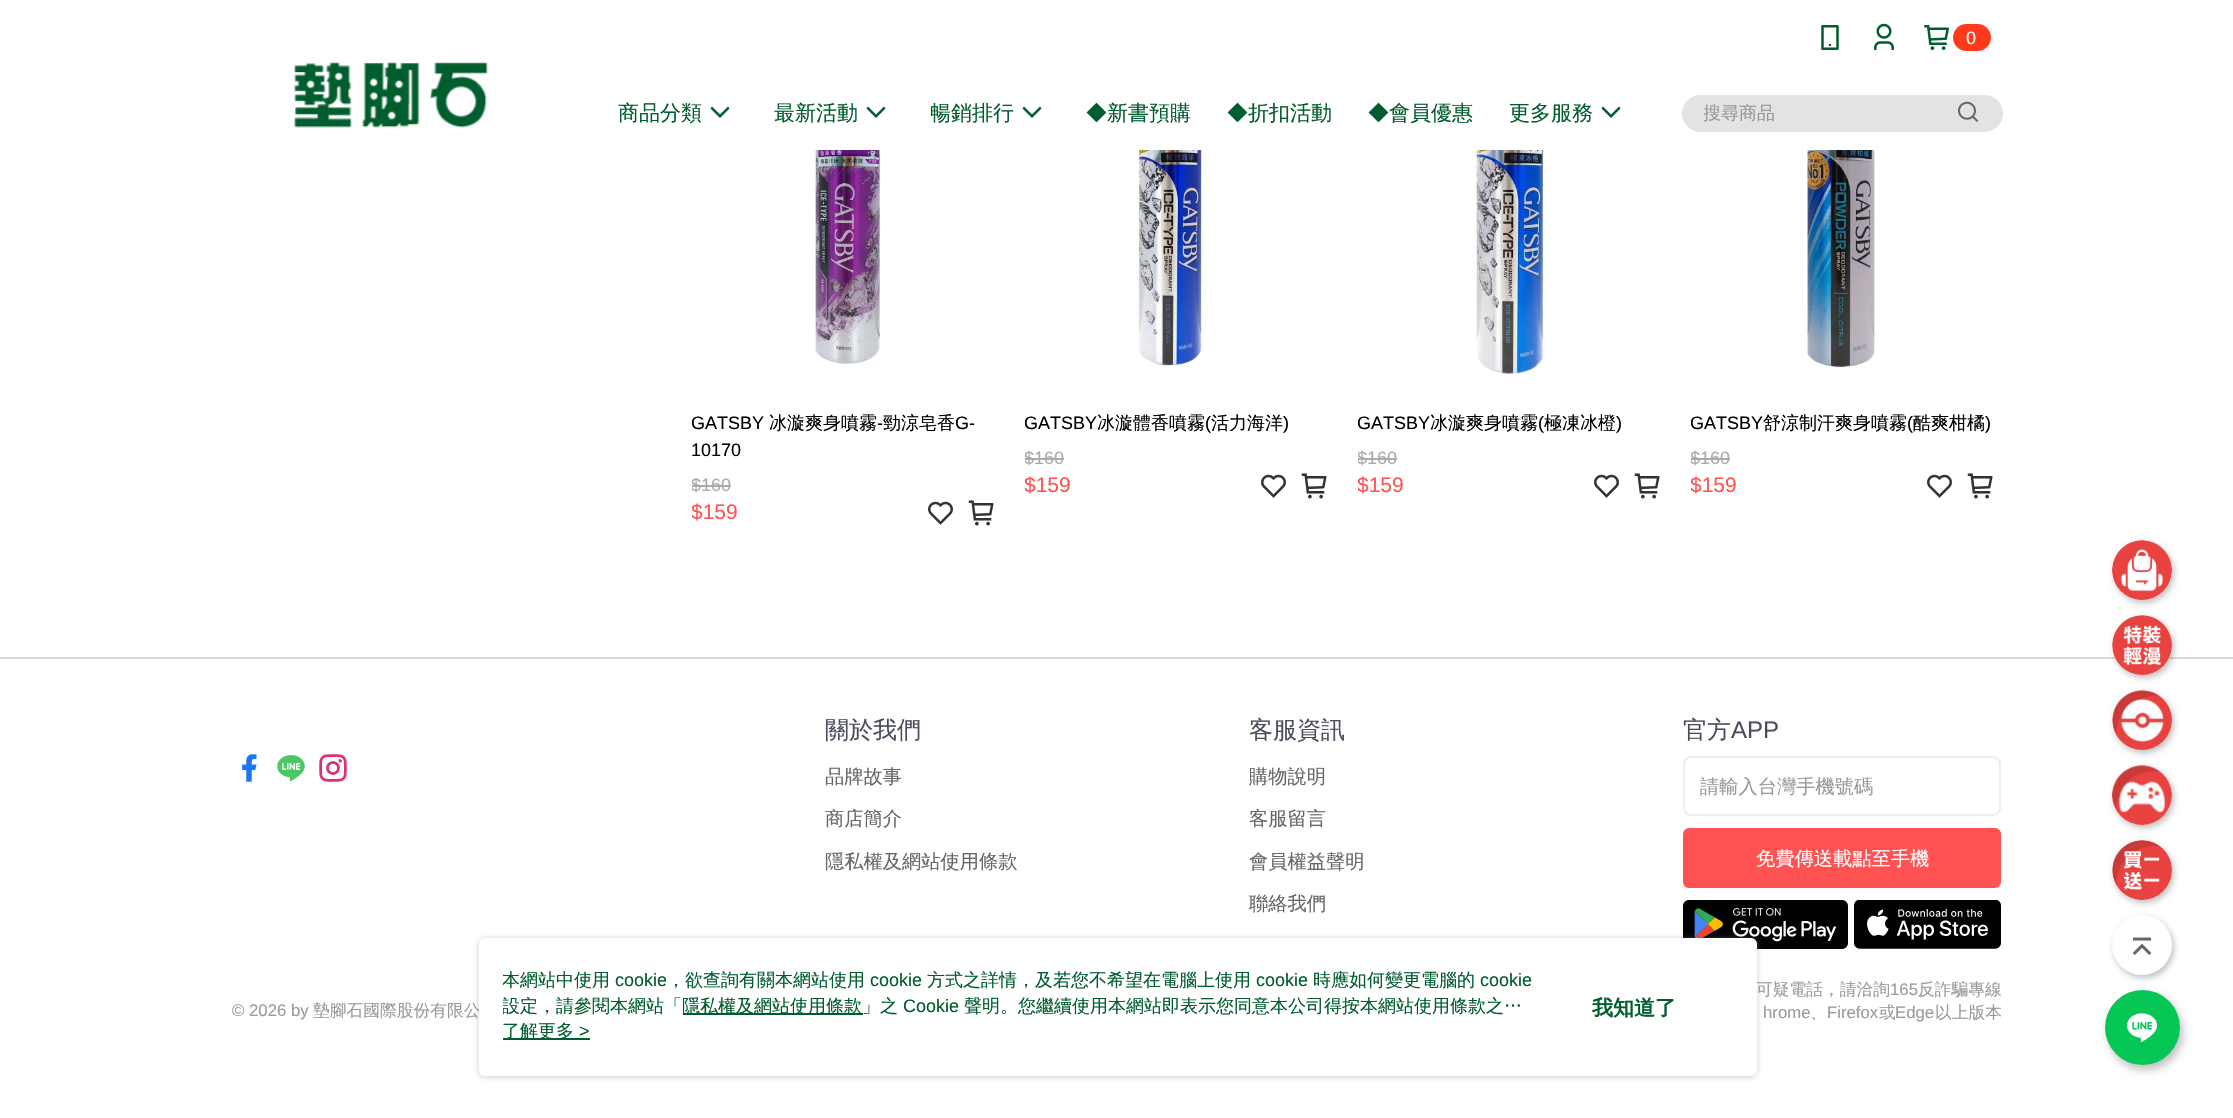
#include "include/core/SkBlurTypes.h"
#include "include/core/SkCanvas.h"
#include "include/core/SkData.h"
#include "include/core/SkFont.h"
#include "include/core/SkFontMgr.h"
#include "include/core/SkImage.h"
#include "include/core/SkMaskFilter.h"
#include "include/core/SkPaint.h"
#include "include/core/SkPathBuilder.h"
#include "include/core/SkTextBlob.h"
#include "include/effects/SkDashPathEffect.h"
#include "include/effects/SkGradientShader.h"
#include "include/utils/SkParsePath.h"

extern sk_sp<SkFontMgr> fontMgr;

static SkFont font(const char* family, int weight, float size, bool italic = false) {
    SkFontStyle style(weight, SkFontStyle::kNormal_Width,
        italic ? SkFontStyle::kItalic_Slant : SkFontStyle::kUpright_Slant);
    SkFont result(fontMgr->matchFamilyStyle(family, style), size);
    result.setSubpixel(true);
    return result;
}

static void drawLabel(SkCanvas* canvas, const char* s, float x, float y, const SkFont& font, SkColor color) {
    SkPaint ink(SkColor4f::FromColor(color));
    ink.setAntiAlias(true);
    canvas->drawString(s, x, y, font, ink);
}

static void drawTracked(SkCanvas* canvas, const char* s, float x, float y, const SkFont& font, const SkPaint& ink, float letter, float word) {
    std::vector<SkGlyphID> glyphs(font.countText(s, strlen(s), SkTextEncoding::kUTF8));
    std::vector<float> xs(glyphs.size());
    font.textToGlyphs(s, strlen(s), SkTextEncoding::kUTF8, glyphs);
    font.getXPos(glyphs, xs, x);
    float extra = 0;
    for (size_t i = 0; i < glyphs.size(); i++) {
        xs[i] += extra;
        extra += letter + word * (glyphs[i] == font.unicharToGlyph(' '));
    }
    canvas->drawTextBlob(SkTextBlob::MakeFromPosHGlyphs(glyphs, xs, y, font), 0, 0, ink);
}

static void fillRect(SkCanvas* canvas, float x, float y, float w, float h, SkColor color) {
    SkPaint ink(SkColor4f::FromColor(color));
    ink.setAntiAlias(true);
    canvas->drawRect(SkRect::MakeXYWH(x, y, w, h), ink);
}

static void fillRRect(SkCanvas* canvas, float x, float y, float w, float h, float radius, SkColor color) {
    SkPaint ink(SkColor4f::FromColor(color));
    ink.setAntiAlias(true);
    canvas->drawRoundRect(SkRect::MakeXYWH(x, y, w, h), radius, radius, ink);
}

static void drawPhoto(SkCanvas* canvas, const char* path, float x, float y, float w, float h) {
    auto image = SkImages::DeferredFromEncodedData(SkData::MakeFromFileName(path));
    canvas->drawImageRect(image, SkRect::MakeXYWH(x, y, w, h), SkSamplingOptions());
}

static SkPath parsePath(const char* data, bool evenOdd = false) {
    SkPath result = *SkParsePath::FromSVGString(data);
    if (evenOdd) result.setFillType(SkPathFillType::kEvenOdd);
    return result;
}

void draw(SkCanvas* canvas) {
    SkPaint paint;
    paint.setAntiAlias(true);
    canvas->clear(0xFFFFFFFF);
    drawPhoto(canvas, "assets/img1.png", 294, 62, 194, 66);
    drawPhoto(canvas, "assets/img2.png", 1821, 25, 18, 25);
    drawPhoto(canvas, "assets/img3.png", 1874, 23, 20, 27);
    drawPhoto(canvas, "assets/img4.png", 1924, 25, 25, 25);
    fillRRect(canvas, 1953, 24, 38, 27, 13.5f, 0xFFFF3A1B);
    SkFont font1 = font("Liberation Sans", 400, 18);
    drawLabel(canvas, "0", 1966, 44, font1, 0xFFFFFFFF);
    SkFont font2 = font("WenQuanYi Zen Hei", 500, 21);
    drawLabel(canvas, "商品分類", 618, 120, font2, 0xFF005D2E);
    paint.setColor(0xFF005D2E);
    canvas->drawPath(parsePath("M712 106.5L710.5 108.5L720 118L729.5 108.5L728 106.5L720 114.5Z"), paint);
    drawLabel(canvas, "最新活動", 774, 120, font2, 0xFF005D2E);
    canvas->drawPath(parsePath("M868 106.5L866.5 108.5L876 118L885.5 108.5L884 106.5L876 114.5Z"), paint);
    drawLabel(canvas, "暢銷排行", 930, 120, font2, 0xFF005D2E);
    canvas->drawPath(parsePath("M1024 106.5L1022.5 108.5L1032 118L1041.5 108.5L1040 106.5L1032 114.5Z"), paint);
    drawLabel(canvas, "◆新書預購", 1086, 120, font2, 0xFF005D2E);
    drawLabel(canvas, "◆折扣活動", 1227, 120, font2, 0xFF005D2E);
    drawLabel(canvas, "◆會員優惠", 1368, 120, font2, 0xFF005D2E);
    drawLabel(canvas, "更多服務", 1509, 120, font2, 0xFF005D2E);
    canvas->drawPath(parsePath("M1603 106.5L1601.5 108.5L1611 118L1620.5 108.5L1619 106.5L1611 114.5Z"), paint);
    fillRRect(canvas, 1682, 95, 321, 37, 18.5f, 0xFFE4E2E2);
    canvas->save();
    canvas->clipRect(SkRect::MakeXYWH(1704, 101, 228, 25));
    SkFont font3 = font("WenQuanYi Zen Hei", 500, 18);
    drawLabel(canvas, "搜尋商品", 1703, 119, font3, 0xFF999999);
    canvas->restore();
    drawPhoto(canvas, "assets/img5.png", 1958, 101, 21, 21);
    paint.setColor(0x40000000);
    paint.setMaskFilter(SkMaskFilter::MakeBlur(kNormal_SkBlurStyle, 3));
    canvas->drawRoundRect(SkRect::MakeXYWH(2114, 543, 60, 60), 30, 30, paint);
    paint.setMaskFilter(nullptr);
    paint.setColor(0xFFFFFFFF);
    canvas->drawCircle(2142, 570, 30, paint);
    drawPhoto(canvas, "assets/img6.png", 2112, 540, 60, 60);
    fillRect(canvas, 0, 657, 2233, 2, 0xFFDADADA);
    paint.setColor(0x40000000);
    paint.setMaskFilter(SkMaskFilter::MakeBlur(kNormal_SkBlurStyle, 3));
    canvas->drawRoundRect(SkRect::MakeXYWH(2114, 618, 60, 60), 30, 30, paint);
    paint.setMaskFilter(nullptr);
    paint.setColor(0xFFFFFFFF);
    canvas->drawCircle(2142, 645, 30, paint);
    drawPhoto(canvas, "assets/img7.png", 2112, 615, 60, 60);
    paint.setColor(0x40000000);
    paint.setMaskFilter(SkMaskFilter::MakeBlur(kNormal_SkBlurStyle, 3));
    canvas->drawRoundRect(SkRect::MakeXYWH(2114, 693, 60, 60), 30, 30, paint);
    paint.setMaskFilter(nullptr);
    paint.setColor(0xFFFFFFFF);
    canvas->drawCircle(2142, 720, 30, paint);
    drawPhoto(canvas, "assets/img8.png", 2112, 690, 60, 60);
    paint.setColor(0x40000000);
    paint.setMaskFilter(SkMaskFilter::MakeBlur(kNormal_SkBlurStyle, 3));
    canvas->drawRoundRect(SkRect::MakeXYWH(2114, 768, 60, 60), 30, 30, paint);
    paint.setMaskFilter(nullptr);
    paint.setColor(0xFFFFFFFF);
    canvas->drawCircle(2142, 795, 30, paint);
    drawPhoto(canvas, "assets/img9.png", 2112, 765, 60, 60);
    paint.setColor(0x40000000);
    paint.setMaskFilter(SkMaskFilter::MakeBlur(kNormal_SkBlurStyle, 3));
    canvas->drawRoundRect(SkRect::MakeXYWH(2114, 843, 60, 60), 30, 30, paint);
    paint.setMaskFilter(nullptr);
    paint.setColor(0xFFFFFFFF);
    canvas->drawCircle(2142, 870, 30, paint);
    drawPhoto(canvas, "assets/img10.png", 2112, 840, 60, 60);
    paint.setColor(0x40000000);
    paint.setMaskFilter(SkMaskFilter::MakeBlur(kNormal_SkBlurStyle, 3));
    canvas->drawRoundRect(SkRect::MakeXYWH(2114, 918, 60, 60), 30, 30, paint);
    paint.setMaskFilter(nullptr);
    paint.setColor(0xFFFFFFFF);
    canvas->drawCircle(2142, 945, 30, paint);
    drawPhoto(canvas, "assets/img11.png", 2132, 937, 20, 18);
    paint.setColor(0x40000000);
    paint.setMaskFilter(SkMaskFilter::MakeBlur(kNormal_SkBlurStyle, 4));
    canvas->drawRoundRect(SkRect::MakeXYWH(2108, 995, 75, 75), 37.5f, 37.5f, paint);
    paint.setMaskFilter(nullptr);
    paint.setColor(0xFF06C755);
    canvas->drawCircle(2142.5f, 1027.5f, 37.5f, paint);
    drawPhoto(canvas, "assets/img12.png", 2127, 1013, 30, 29);
    drawPhoto(canvas, "assets/img13.png", 815, 150, 66, 214);
    canvas->save();
    canvas->clipRect(SkRect::MakeXYWH(692, 410, 303, 54));
    drawLabel(canvas, "GATSBY", 691, 429, font1, 0xFF000000);
    canvas->restore();
    drawLabel(canvas, "冰漩爽身噴霧", 769, 429, font3, 0xFF000000);
    drawLabel(canvas, "-", 877, 429, font1, 0xFF000000);
    drawLabel(canvas, "勁涼皂香", 883, 429, font3, 0xFF000000);
    drawLabel(canvas, "G-", 955, 429, font1, 0xFF000000);
    drawLabel(canvas, "10170", 691, 456, font1, 0xFF000000);
    canvas->save();
    canvas->clipRect(SkRect::MakeXYWH(692, 476, 303, 18));
    drawLabel(canvas, "$160", 691, 491, font1, 0xFFAAAAAA);
    canvas->restore();
    fillRect(canvas, 692, 485, 39, 2, 0xFFAAAAAA);
    canvas->save();
    canvas->clipRect(SkRect::MakeXYWH(692, 494, 228, 36));
    SkFont font4 = font("Liberation Sans", 400, 21);
    drawLabel(canvas, "$159", 691, 519, font4, 0xFFFF5353);
    canvas->restore();
    drawPhoto(canvas, "assets/img14.png", 928, 501, 25, 24);
    drawPhoto(canvas, "assets/img15.png", 968, 500, 26, 26);
    drawPhoto(canvas, "assets/img16.png", 1138, 150, 67, 216);
    canvas->save();
    canvas->clipRect(SkRect::MakeXYWH(1025, 410, 303, 27));
    drawLabel(canvas, "GATSBY", 1024, 429, font1, 0xFF000000);
    canvas->restore();
    drawLabel(canvas, "冰漩體香噴霧", 1097, 429, font3, 0xFF000000);
    drawLabel(canvas, "(", 1205, 429, font1, 0xFF000000);
    drawLabel(canvas, "活力海洋", 1211, 429, font3, 0xFF000000);
    drawLabel(canvas, ")", 1283, 429, font1, 0xFF000000);
    canvas->save();
    canvas->clipRect(SkRect::MakeXYWH(1025, 449, 303, 18));
    drawLabel(canvas, "$160", 1024, 464, font1, 0xFFAAAAAA);
    canvas->restore();
    fillRect(canvas, 1025, 458, 39, 2, 0xFFAAAAAA);
    canvas->save();
    canvas->clipRect(SkRect::MakeXYWH(1025, 467, 228, 36));
    drawLabel(canvas, "$159", 1024, 492, font4, 0xFFFF5353);
    canvas->restore();
    drawPhoto(canvas, "assets/img14.png", 1261, 474, 25, 24);
    drawPhoto(canvas, "assets/img15.png", 1301, 473, 26, 26);
    drawPhoto(canvas, "assets/img17.png", 1474, 150, 70, 224);
    canvas->save();
    canvas->clipRect(SkRect::MakeXYWH(1358, 410, 303, 27));
    drawLabel(canvas, "GATSBY", 1357, 429, font1, 0xFF000000);
    canvas->restore();
    drawLabel(canvas, "冰漩爽身噴霧", 1430, 429, font3, 0xFF000000);
    drawLabel(canvas, "(", 1538, 429, font1, 0xFF000000);
    drawLabel(canvas, "極凍冰橙", 1544, 429, font3, 0xFF000000);
    drawLabel(canvas, ")", 1616, 429, font1, 0xFF000000);
    canvas->save();
    canvas->clipRect(SkRect::MakeXYWH(1358, 449, 303, 18));
    drawLabel(canvas, "$160", 1357, 464, font1, 0xFFAAAAAA);
    canvas->restore();
    fillRect(canvas, 1358, 458, 39, 2, 0xFFAAAAAA);
    canvas->save();
    canvas->clipRect(SkRect::MakeXYWH(1358, 467, 228, 36));
    drawLabel(canvas, "$159", 1357, 492, font4, 0xFFFF5353);
    canvas->restore();
    drawPhoto(canvas, "assets/img14.png", 1594, 474, 25, 24);
    drawPhoto(canvas, "assets/img15.png", 1634, 473, 26, 26);
    drawPhoto(canvas, "assets/img18.png", 1807, 150, 68, 218);
    canvas->save();
    canvas->clipRect(SkRect::MakeXYWH(1691, 410, 303, 27));
    drawLabel(canvas, "GATSBY", 1690, 429, font1, 0xFF000000);
    canvas->restore();
    drawLabel(canvas, "舒涼制汗爽身噴霧", 1763, 429, font3, 0xFF000000);
    drawLabel(canvas, "(", 1907, 429, font1, 0xFF000000);
    drawLabel(canvas, "酷爽柑橘", 1913, 429, font3, 0xFF000000);
    drawLabel(canvas, ")", 1985, 429, font1, 0xFF000000);
    canvas->save();
    canvas->clipRect(SkRect::MakeXYWH(1691, 449, 303, 18));
    drawLabel(canvas, "$160", 1690, 464, font1, 0xFFAAAAAA);
    canvas->restore();
    fillRect(canvas, 1691, 458, 39, 2, 0xFFAAAAAA);
    canvas->save();
    canvas->clipRect(SkRect::MakeXYWH(1691, 467, 228, 36));
    drawLabel(canvas, "$159", 1690, 492, font4, 0xFFFF5353);
    canvas->restore();
    drawPhoto(canvas, "assets/img14.png", 1927, 474, 25, 24);
    drawPhoto(canvas, "assets/img15.png", 1967, 473, 26, 26);
    drawPhoto(canvas, "assets/img19.png", 242, 754, 15, 28);
    drawPhoto(canvas, "assets/img20.png", 277, 755, 28, 27);
    drawPhoto(canvas, "assets/img21.png", 319, 754, 28, 28);
    SkFont font5 = font("WenQuanYi Zen Hei", 500, 24);
    drawLabel(canvas, "關於我們", 825, 738, font5, 0xFF4A4E5C);
    SkFont font6 = font("WenQuanYi Zen Hei", 500, 19.25f);
    drawLabel(canvas, "品牌故事", 825, 783, font6, 0xFF666666);
    drawLabel(canvas, "商店簡介", 825, 825, font6, 0xFF666666);
    drawLabel(canvas, "隱私權及網站使用條款", 825, 868, font6, 0xFF666666);
    drawLabel(canvas, "客服資訊", 1249, 738, font5, 0xFF4A4E5C);
    drawLabel(canvas, "購物說明", 1249, 783, font6, 0xFF666666);
    drawLabel(canvas, "客服留言", 1249, 825, font6, 0xFF666666);
    drawLabel(canvas, "會員權益聲明", 1249, 868, font6, 0xFF666666);
    drawLabel(canvas, "聯絡我們", 1249, 910, font6, 0xFF666666);
    drawLabel(canvas, "官方", 1683, 738, font5, 0xFF4A4E5C);
    SkFont font7 = font("Liberation Sans", 400, 24);
    drawLabel(canvas, "APP", 1731, 738, font7, 0xFF4A4E5C);
    paint.setStroke(true);
    paint.setStrokeWidth(2);
    paint.setColor(0xFFEDEDED);
    canvas->drawRoundRect(SkRect::MakeXYWH(1684, 757, 316, 58), 7, 7, paint);
    drawLabel(canvas, "請輸入台灣手機號碼", 1700, 793, font6, 0xFF999999);
    fillRRect(canvas, 1683, 828, 318, 60, 6, 0xFFFF5353);
    drawLabel(canvas, "免費傳送載點至手機", 1756, 865, font6, 0xFFFFFFFF);
    drawPhoto(canvas, "assets/img22.png", 1683, 900, 165, 49);
    drawPhoto(canvas, "assets/img23.png", 1854, 900, 147, 49);
    SkFont font8 = font("WenQuanYi Zen Hei", 500, 16.75f);
    drawLabel(canvas, "可疑電話，請洽詢", 1756, 995, font8, 0xFF999999);
    SkFont font9 = font("Liberation Sans", 400, 16.75f);
    drawLabel(canvas, "165", 1890, 995, font9, 0xFF999999);
    drawLabel(canvas, "反詐騙專線", 1918, 995, font8, 0xFF999999);
    drawLabel(canvas, "© 2026 by", 232, 1016, font9, 0xFF999999);
    drawLabel(canvas, "墊腳石國際股份有限公", 313, 1016, font8, 0xFF999999);
    paint.setStroke(false);
    paint.setColor(0xFF999999);
    drawTracked(canvas, "hrome", 1763, 1018, font9, paint, 0, -1);
    drawLabel(canvas, "、", 1810, 1018, font8, 0xFF999999);
    drawLabel(canvas, "Firefox", 1827, 1018, font9, 0xFF999999);
    drawLabel(canvas, "或", 1879, 1018, font8, 0xFF999999);
    drawLabel(canvas, "Edge", 1895, 1018, font9, 0xFF999999);
    drawLabel(canvas, "以上版本", 1935, 1018, font8, 0xFF999999);
    paint.setColor(0x80979797);
    paint.setMaskFilter(SkMaskFilter::MakeBlur(kNormal_SkBlurStyle, 3));
    canvas->drawRoundRect(SkRect::MakeXYWH(479, 939, 1278, 138), 6, 6, paint);
    paint.setMaskFilter(nullptr);
    fillRRect(canvas, 479, 938, 1278, 138, 6, 0xFFFFFFFF);
    canvas->save();
    canvas->clipRect(SkRect::MakeXYWH(503, 968, 1035, 51));
    drawLabel(canvas, "本網站中使用", 502, 986, font3, 0xFF005D2E);
    canvas->restore();
    drawLabel(canvas, "cookie", 615, 986, font1, 0xFF005D2E);
    drawLabel(canvas, "，欲查詢有關本網站使用", 667, 986, font3, 0xFF005D2E);
    drawLabel(canvas, "cookie", 870, 986, font1, 0xFF005D2E);
    drawLabel(canvas, "方式之詳情，及若您不希望在電腦上使用", 927, 986, font3, 0xFF005D2E);
    drawLabel(canvas, "cookie", 1256, 986, font1, 0xFF005D2E);
    drawLabel(canvas, "時應如何變更電腦的", 1313, 986, font3, 0xFF005D2E);
    drawLabel(canvas, "cookie", 1480, 986, font1, 0xFF005D2E);
    canvas->save();
    canvas->clipRect(SkRect::MakeXYWH(503, 968, 1035, 51));
    drawLabel(canvas, "設定，請參閱本網站「", 502, 1012, font3, 0xFF005D2E);
    canvas->restore();
    fillRect(canvas, 683, 1013, 180, 2, 0xFF005D2E);
    drawLabel(canvas, "隱私權及網站使用條款」之", 682, 1012, font3, 0xFF005D2E);
    drawLabel(canvas, "Cookie", 903, 1012, font1, 0xFF005D2E);
    drawLabel(canvas, "聲明。您繼續使用本網站即表示您同意本公司得按本網站使用條款之…", 964, 1012, font3, 0xFF005D2E);
    fillRect(canvas, 503, 1038, 87, 2, 0xFF005D2E);
    drawLabel(canvas, "了解更多", 502, 1037, font3, 0xFF005D2E);
    drawLabel(canvas, ">", 579, 1037, font1, 0xFF005D2E);
    SkFont font10 = font("WenQuanYi Zen Hei", 700, 21);
    drawLabel(canvas, "我知道了", 1592, 1015, font10, 0xFF005D2E);
}
